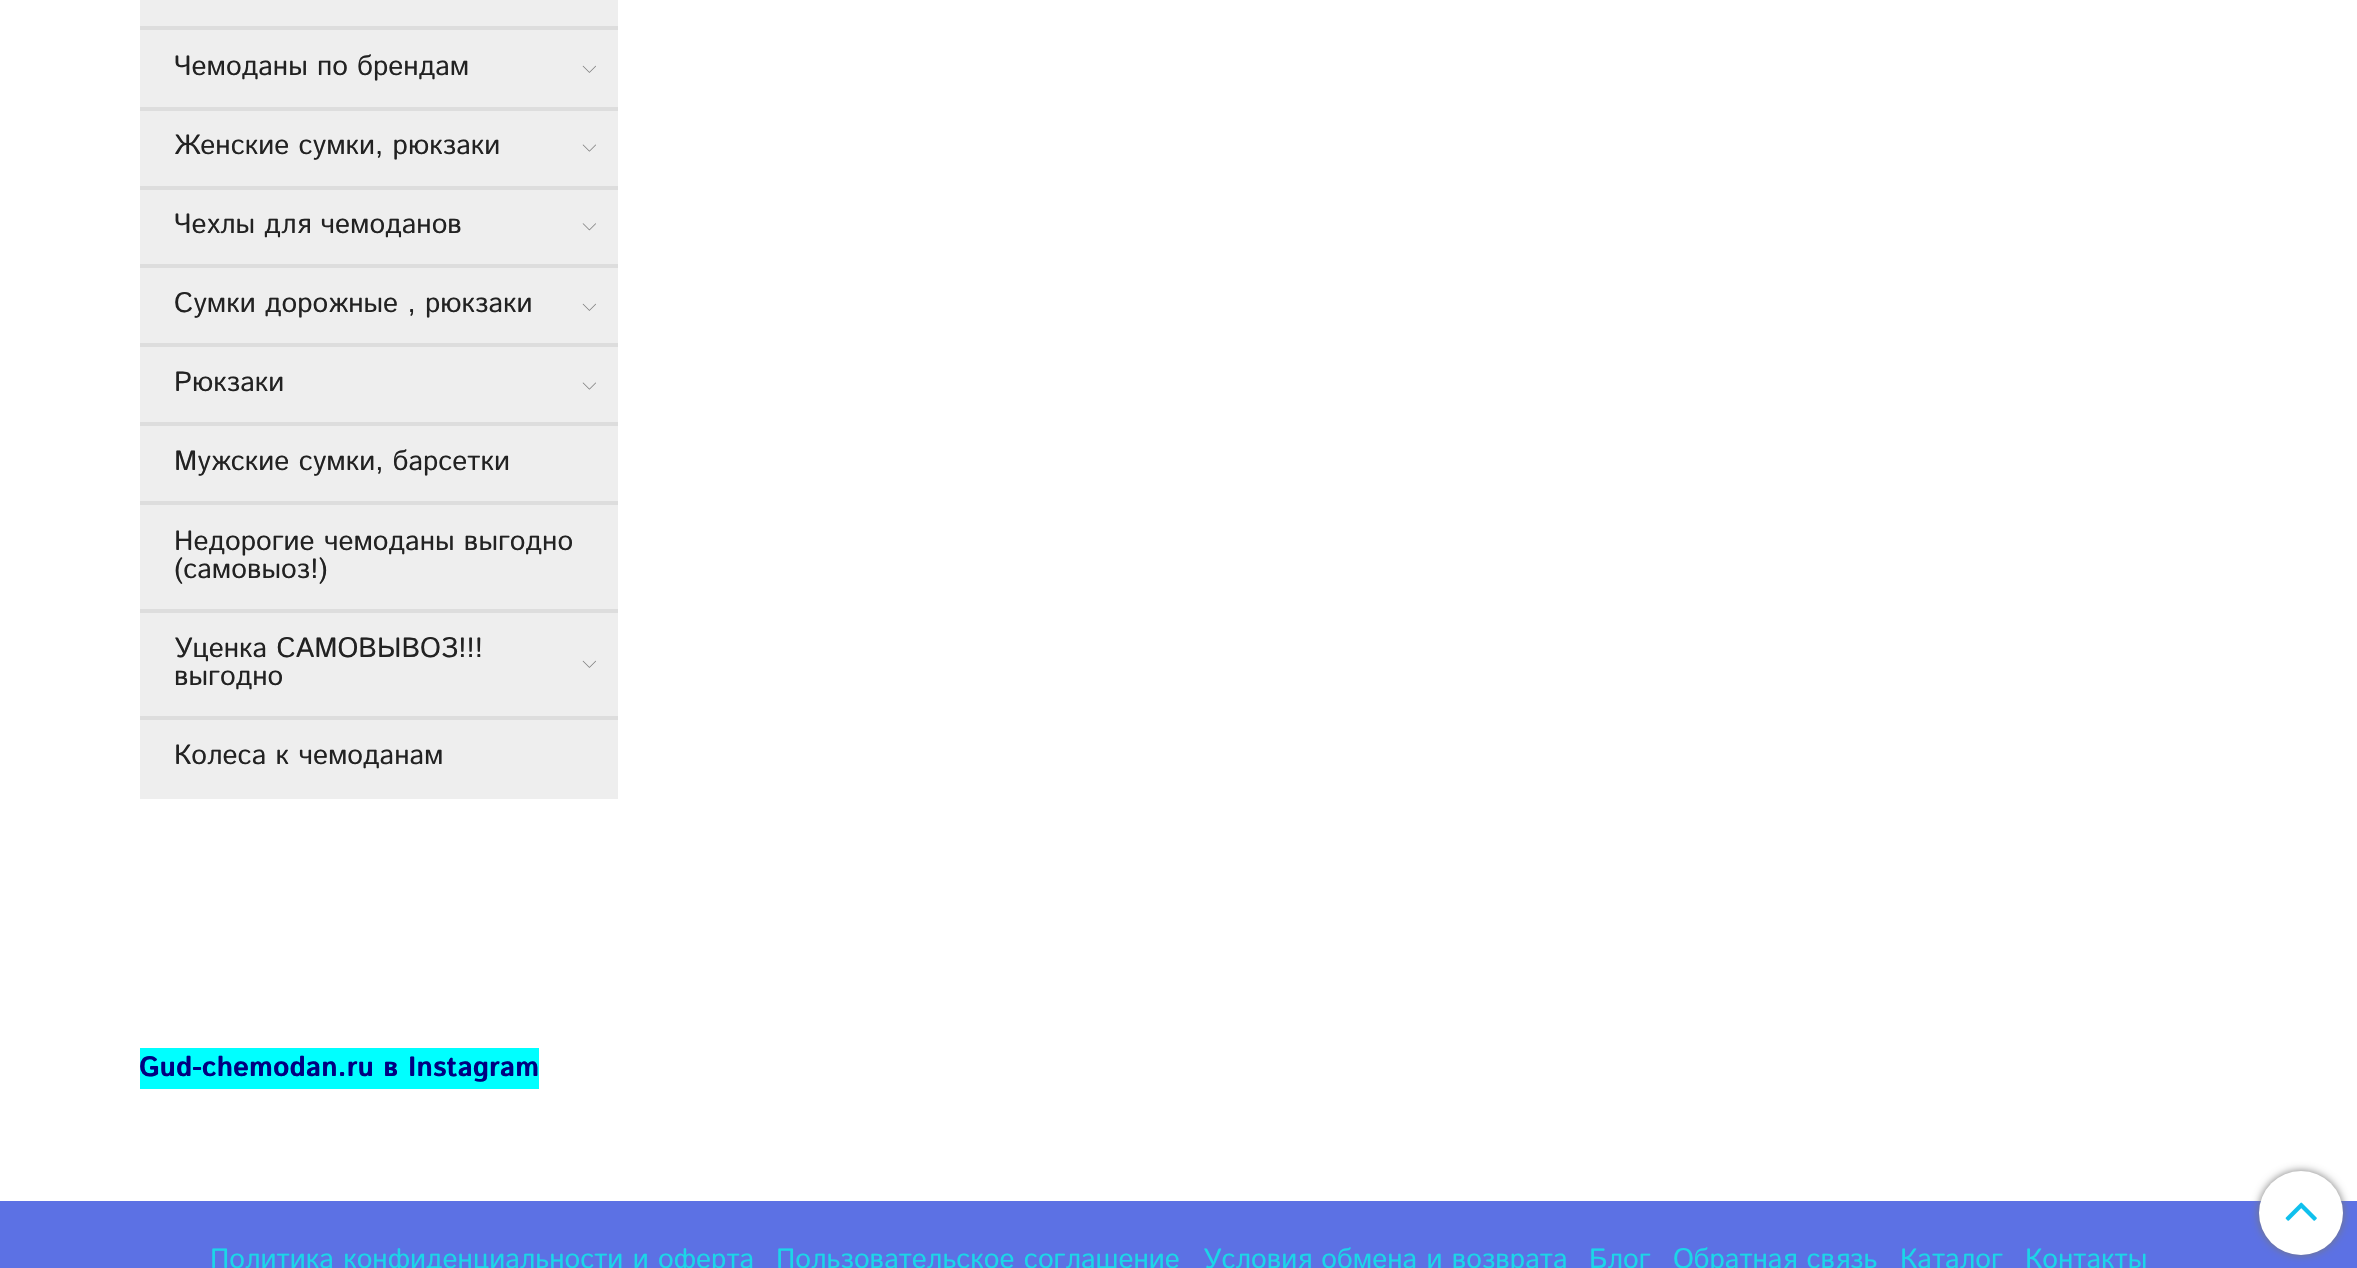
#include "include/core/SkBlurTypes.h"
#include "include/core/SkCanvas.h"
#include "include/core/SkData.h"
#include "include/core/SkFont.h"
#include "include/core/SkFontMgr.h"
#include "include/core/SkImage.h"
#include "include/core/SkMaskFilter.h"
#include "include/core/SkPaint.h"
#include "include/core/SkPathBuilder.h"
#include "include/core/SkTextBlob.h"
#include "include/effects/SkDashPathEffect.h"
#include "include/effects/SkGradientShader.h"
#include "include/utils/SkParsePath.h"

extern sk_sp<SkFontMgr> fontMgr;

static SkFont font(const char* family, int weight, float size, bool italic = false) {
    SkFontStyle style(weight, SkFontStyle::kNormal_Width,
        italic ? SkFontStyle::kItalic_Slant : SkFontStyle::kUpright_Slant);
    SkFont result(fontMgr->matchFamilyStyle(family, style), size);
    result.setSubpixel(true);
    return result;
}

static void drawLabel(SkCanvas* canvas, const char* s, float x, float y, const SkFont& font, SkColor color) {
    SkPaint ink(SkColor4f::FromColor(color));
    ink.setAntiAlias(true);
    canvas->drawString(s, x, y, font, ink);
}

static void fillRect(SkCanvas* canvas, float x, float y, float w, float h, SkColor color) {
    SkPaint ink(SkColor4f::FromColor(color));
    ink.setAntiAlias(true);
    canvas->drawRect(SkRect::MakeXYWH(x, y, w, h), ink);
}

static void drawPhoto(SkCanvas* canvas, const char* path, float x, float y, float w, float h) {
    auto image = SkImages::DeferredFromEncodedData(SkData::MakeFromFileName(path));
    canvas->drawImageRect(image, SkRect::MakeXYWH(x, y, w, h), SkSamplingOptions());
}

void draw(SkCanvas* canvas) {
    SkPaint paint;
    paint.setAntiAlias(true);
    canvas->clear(0xFFFFFFFF);
    fillRect(canvas, 140, 0, 478, 799, 0xFFEEEEEE);
    fillRect(canvas, 140, 26, 478, 4, 0xFFDDDDDD);
    fillRect(canvas, 140, 107, 478, 4, 0xFFDDDDDD);
    SkFont font1 = font("Istok Web", 400, 28);
    drawLabel(canvas, "Чемоданы по брендам", 174, 75, font1, 0xFF222222);
    drawPhoto(canvas, "assets/img1.png", 582, 65, 14, 8);
    fillRect(canvas, 140, 186, 478, 4, 0xFFDDDDDD);
    drawLabel(canvas, "Женские сумки, рюкзаки", 174, 154, font1, 0xFF222222);
    drawPhoto(canvas, "assets/img2.png", 582, 144, 14, 8);
    fillRect(canvas, 140, 264, 478, 4, 0xFFDDDDDD);
    drawLabel(canvas, "Чехлы для чемоданов", 174, 233, font1, 0xFF222222);
    drawPhoto(canvas, "assets/img3.png", 582, 223, 14, 8);
    fillRect(canvas, 140, 343, 478, 4, 0xFFDDDDDD);
    drawLabel(canvas, "Сумки дорожные , рюкзаки", 174, 312, font1, 0xFF222222);
    drawPhoto(canvas, "assets/img1.png", 582, 303, 14, 8);
    fillRect(canvas, 140, 422, 478, 4, 0xFFDDDDDD);
    drawLabel(canvas, "Рюкзаки", 174, 391, font1, 0xFF222222);
    drawPhoto(canvas, "assets/img2.png", 582, 382, 14, 8);
    fillRect(canvas, 140, 501, 478, 4, 0xFFDDDDDD);
    drawLabel(canvas, "Мужские сумки, барсетки", 174, 470, font1, 0xFF222222);
    fillRect(canvas, 140, 609, 478, 4, 0xFFDDDDDD);
    drawLabel(canvas, "Недорогие чемоданы выгодно", 174, 550, font1, 0xFF222222);
    drawLabel(canvas, "(самовыоз!)", 174, 578, font1, 0xFF222222);
    fillRect(canvas, 140, 716, 478, 4, 0xFFDDDDDD);
    drawLabel(canvas, "Уценка САМОВЫВОЗ!!!", 174, 657, font1, 0xFF222222);
    drawLabel(canvas, "выгодно", 174, 685, font1, 0xFF222222);
    drawPhoto(canvas, "assets/img1.png", 582, 660, 14, 8);
    drawLabel(canvas, "Колеса к чемоданам", 174, 764, font1, 0xFF222222);
    fillRect(canvas, 140, 1048, 399, 41, 0xFF00FFFF);
    SkFont font2 = font("Istok Web", 700, 28);
    drawLabel(canvas, "Gud-chemodan.ru в Instagram", 139, 1076, font2, 0xFF000080);
    fillRect(canvas, 0, 1201, 2357, 67, 0xFF5C71E4);
    drawLabel(canvas, "Политика конфиденциальности и оферта", 210, 1268, font1, 0xFF1BD6E8);
    drawLabel(canvas, "Пользовательское соглашение", 776, 1268, font1, 0xFF1BD6E8);
    drawLabel(canvas, "Условия обмена и возврата", 1203, 1268, font1, 0xFF1BD6E8);
    drawLabel(canvas, "Блог", 1589, 1268, font1, 0xFF1BD6E8);
    drawLabel(canvas, "Обратная связь", 1673, 1268, font1, 0xFF1BD6E8);
    drawLabel(canvas, "Каталог", 1900, 1268, font1, 0xFF1BD6E8);
    drawLabel(canvas, "Контакты", 2025, 1268, font1, 0xFF1BD6E8);
    paint.setColor(0xFF777777);
    paint.setMaskFilter(SkMaskFilter::MakeBlur(kNormal_SkBlurStyle, 4.5f));
    canvas->drawRoundRect(SkRect::MakeXYWH(2259, 1171, 84, 84), 42, 42, paint);
    paint.setMaskFilter(nullptr);
    paint.setColor(0xFFFFFFFF);
    canvas->drawCircle(2301, 1213, 42, paint);
    drawPhoto(canvas, "assets/img4.png", 2285, 1202, 32, 19);
}
